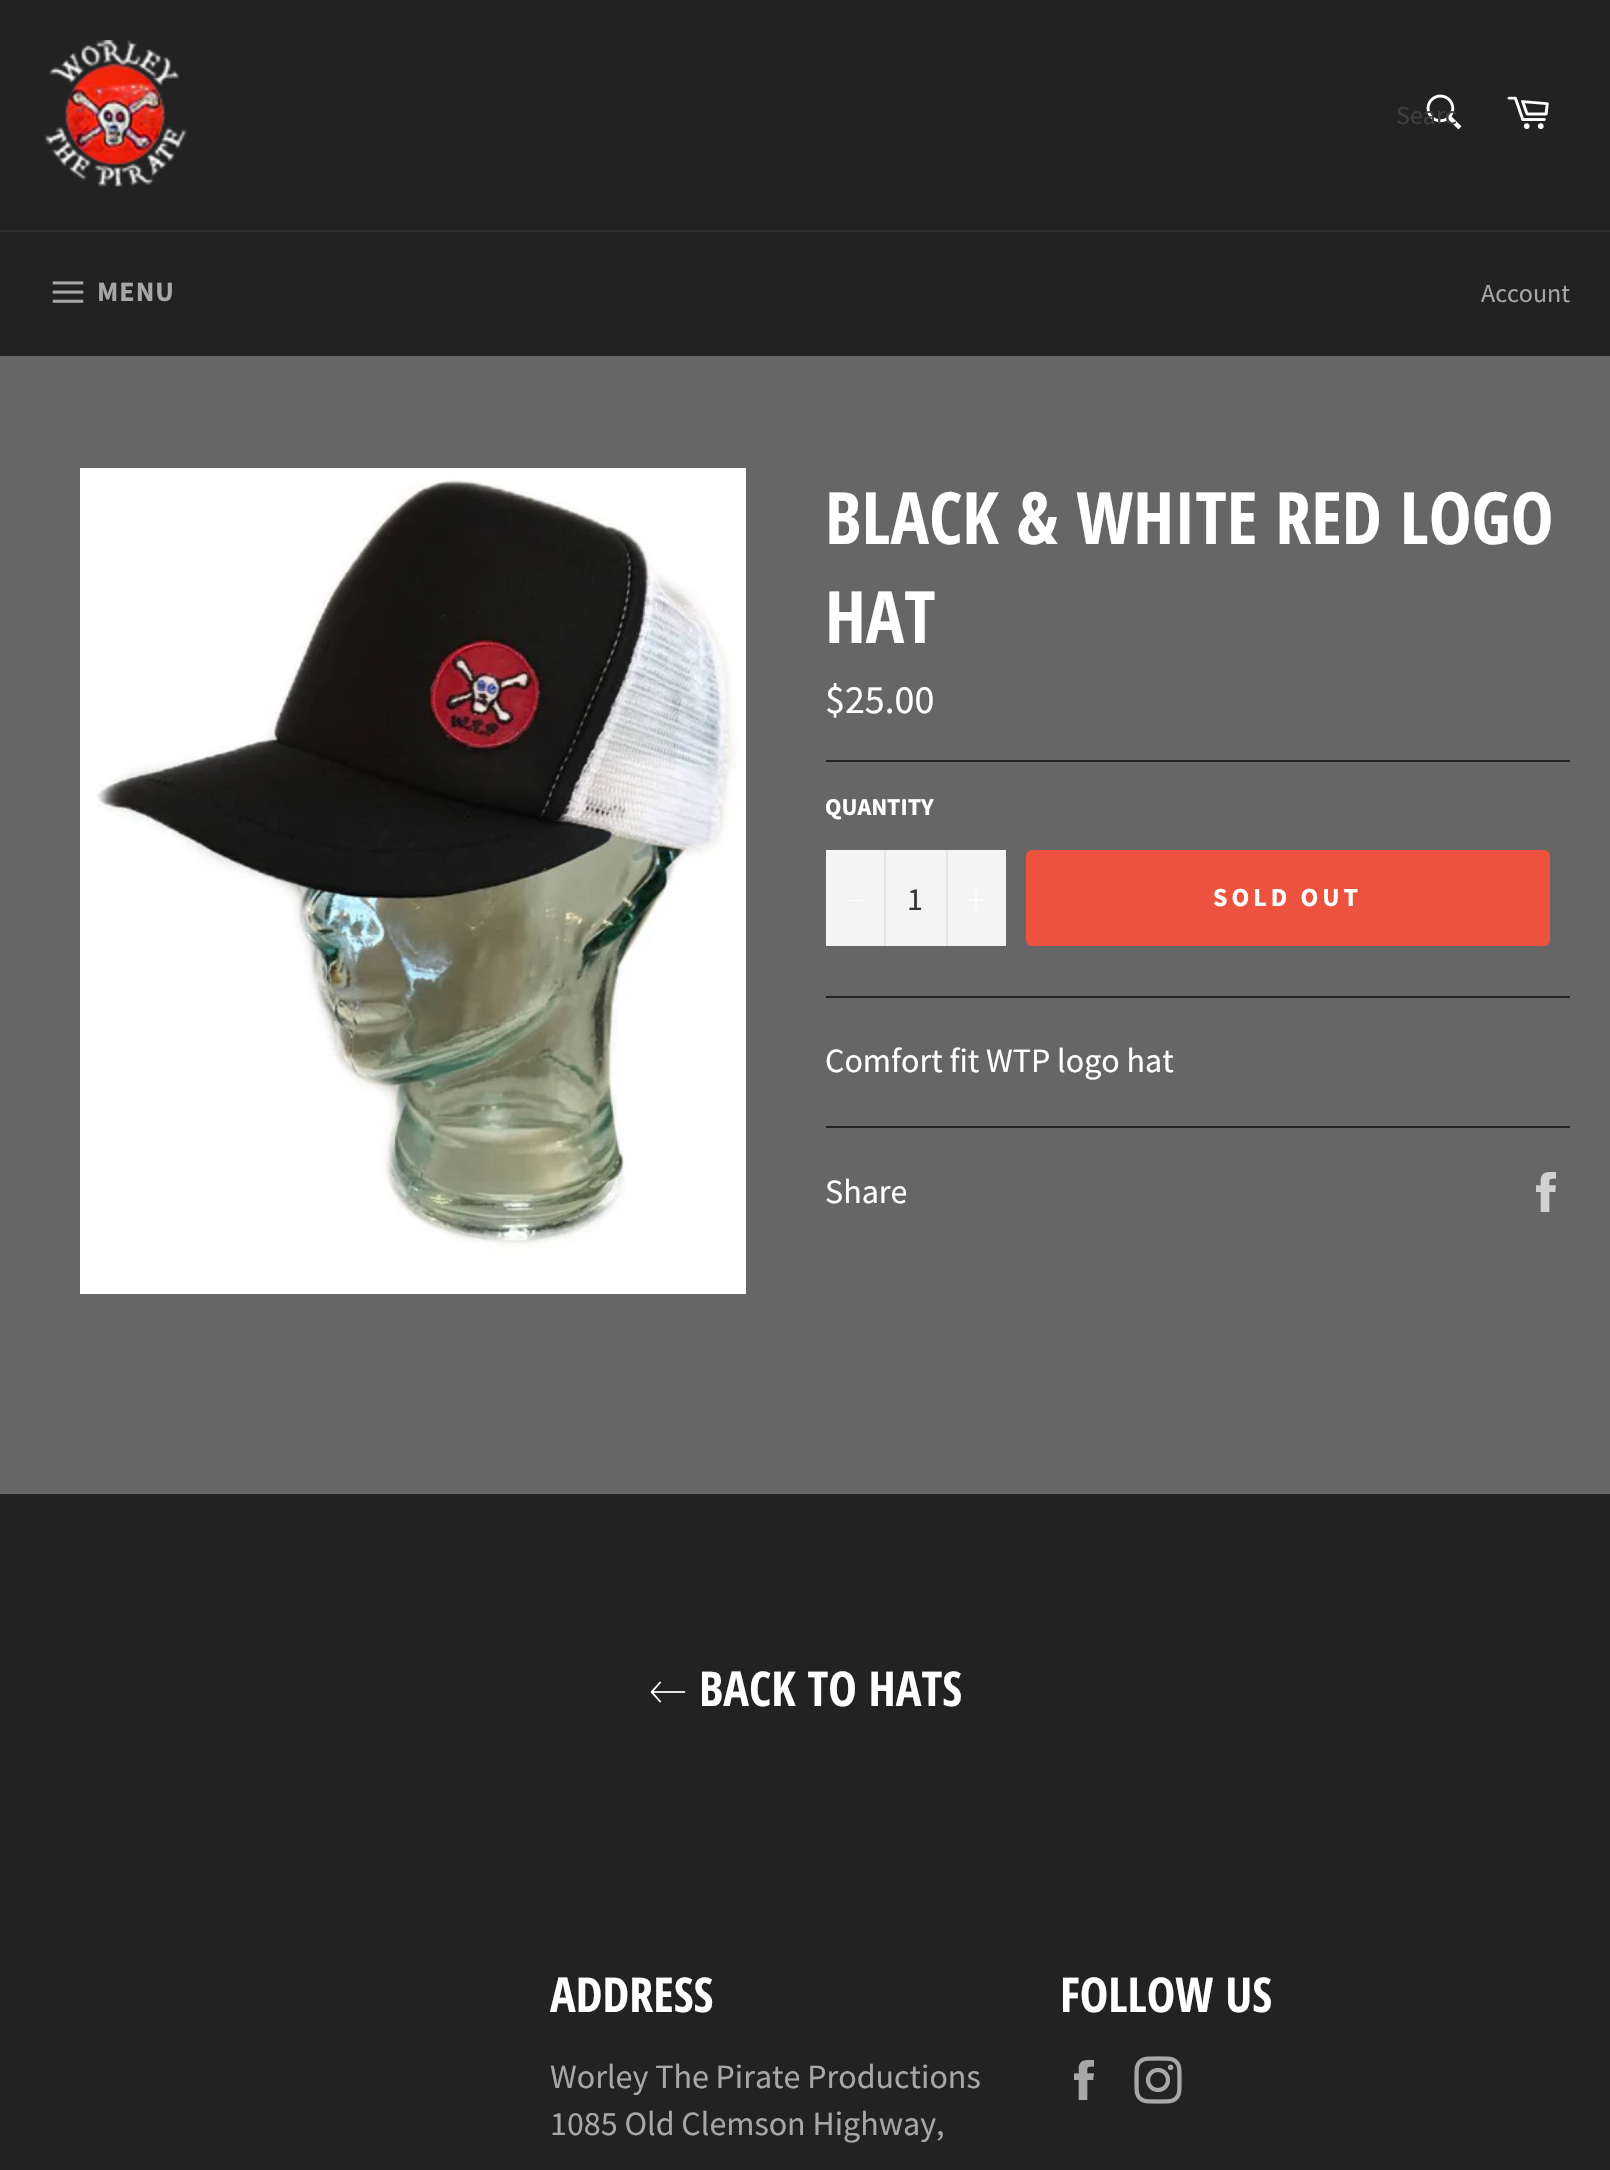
#include "include/core/SkBlurTypes.h"
#include "include/core/SkCanvas.h"
#include "include/core/SkData.h"
#include "include/core/SkFont.h"
#include "include/core/SkFontMgr.h"
#include "include/core/SkImage.h"
#include "include/core/SkMaskFilter.h"
#include "include/core/SkPaint.h"
#include "include/core/SkPathBuilder.h"
#include "include/core/SkTextBlob.h"
#include "include/effects/SkDashPathEffect.h"
#include "include/effects/SkGradientShader.h"
#include "include/utils/SkParsePath.h"

extern sk_sp<SkFontMgr> fontMgr;

static SkFont font(const char* family, int weight, float size, bool italic = false) {
    SkFontStyle style(weight, SkFontStyle::kNormal_Width,
        italic ? SkFontStyle::kItalic_Slant : SkFontStyle::kUpright_Slant);
    SkFont result(fontMgr->matchFamilyStyle(family, style), size);
    result.setSubpixel(true);
    return result;
}

static void drawLabel(SkCanvas* canvas, const char* s, float x, float y, const SkFont& font, SkColor color) {
    SkPaint ink(SkColor4f::FromColor(color));
    ink.setAntiAlias(true);
    canvas->drawString(s, x, y, font, ink);
}

static void drawTracked(SkCanvas* canvas, const char* s, float x, float y, const SkFont& font, const SkPaint& ink, float letter, float word) {
    std::vector<SkGlyphID> glyphs(font.countText(s, strlen(s), SkTextEncoding::kUTF8));
    std::vector<float> xs(glyphs.size());
    font.textToGlyphs(s, strlen(s), SkTextEncoding::kUTF8, glyphs);
    font.getXPos(glyphs, xs, x);
    float extra = 0;
    for (size_t i = 0; i < glyphs.size(); i++) {
        xs[i] += extra;
        extra += letter + word * (glyphs[i] == font.unicharToGlyph(' '));
    }
    canvas->drawTextBlob(SkTextBlob::MakeFromPosHGlyphs(glyphs, xs, y, font), 0, 0, ink);
}

static void fillRect(SkCanvas* canvas, float x, float y, float w, float h, SkColor color) {
    SkPaint ink(SkColor4f::FromColor(color));
    ink.setAntiAlias(true);
    canvas->drawRect(SkRect::MakeXYWH(x, y, w, h), ink);
}

static void fillRRect(SkCanvas* canvas, float x, float y, float w, float h, float radius, SkColor color) {
    SkPaint ink(SkColor4f::FromColor(color));
    ink.setAntiAlias(true);
    canvas->drawRoundRect(SkRect::MakeXYWH(x, y, w, h), radius, radius, ink);
}

static void drawPhoto(SkCanvas* canvas, const char* path, float x, float y, float w, float h) {
    auto image = SkImages::DeferredFromEncodedData(SkData::MakeFromFileName(path));
    canvas->drawImageRect(image, SkRect::MakeXYWH(x, y, w, h), SkSamplingOptions());
}

void draw(SkCanvas* canvas) {
    SkPaint paint;
    paint.setAntiAlias(true);
    canvas->clear(0xFF222222);
    drawPhoto(canvas, "assets/img1.png", 45, 40, 142, 147);
    drawPhoto(canvas, "assets/img2.png", 1426, 94, 36, 36);
    SkFont font1 = font("Source Sans Pro", 400, 26);
    drawLabel(canvas, "Searc", 1396, 124, font1, 0xFF3F3F3F);
    drawPhoto(canvas, "assets/img3.png", 1507, 96, 42, 33);
    fillRect(canvas, 0, 230, 1610, 2, 0xFF2F2F2F);
    drawPhoto(canvas, "assets/img4.png", 52, 281, 32, 22);
    SkFont font2 = font("Source Sans Pro", 700, 28);
    paint.setColor(0xFFA7A7A7);
    drawTracked(canvas, "MENU", 97, 301, font2, paint, 1, 0);
    drawLabel(canvas, "Account", 1481, 302, font1, 0xFFA7A7A7);
    fillRect(canvas, 0, 356, 1610, 1138, 0xFF666666);
    drawPhoto(canvas, "assets/img5.png", 80, 468, 666, 826);
    SkFont font3 = font("Open Sans Condensed", 700, 72);
    drawLabel(canvas, "BLACK & WHITE RED LOGO", 825, 544, font3, 0xFFFFFFFF);
    drawLabel(canvas, "HAT", 825, 643, font3, 0xFFFFFFFF);
    SkFont font4 = font("Source Sans Pro", 400, 40);
    drawLabel(canvas, "$25.00", 825, 713, font4, 0xFFFFFFFF);
    fillRect(canvas, 826, 760, 744, 2, 0xFF222222);
    SkFont font5 = font("Source Sans Pro", 700, 24);
    drawLabel(canvas, "QUANTITY", 825, 815, font5, 0xFFFFFFFF);
    fillRect(canvas, 826, 850, 180, 96, 0xFFF4F4F4);
    fillRect(canvas, 884, 850, 2, 96, 0xFFE7E7E7);
    fillRect(canvas, 847, 900, 15, 1, 0xFFFFFFFF);
    SkFont font6 = font("Source Sans Pro", 400, 32);
    drawLabel(canvas, "1", 907, 910, font6, 0xFF333333);
    fillRect(canvas, 946, 850, 2, 96, 0xFFE7E7E7);
    drawPhoto(canvas, "assets/img6.png", 968, 892, 16, 16);
    fillRRect(canvas, 1026, 850, 524, 96, 6, 0xFFEC523E);
    SkFont font7 = font("Source Sans Pro", 700, 26);
    paint.setColor(0xFFFFFFFF);
    drawTracked(canvas, "SOLD OUT", 1213, 906, font7, paint, 4, 0);
    fillRect(canvas, 826, 996, 744, 2, 0xFF222222);
    SkFont font8 = font("Source Sans Pro", 400, 34);
    drawLabel(canvas, "Comfort fit WTP logo hat", 825, 1072, font8, 0xFFFFFFFF);
    fillRect(canvas, 826, 1126, 744, 2, 0xFF222222);
    drawLabel(canvas, "Share", 825, 1203, font8, 0xFFFFFFFF);
    drawPhoto(canvas, "assets/img7.png", 1536, 1172, 20, 40);
    drawPhoto(canvas, "assets/img8.png", 650, 1681, 36, 22);
    SkFont font9 = font("Open Sans Condensed", 700, 48);
    drawLabel(canvas, "BACK TO HATS", 699, 1706, font9, 0xFFFFFFFF);
    drawLabel(canvas, "ADDRESS", 550, 2012, font9, 0xFFFFFFFF);
    drawLabel(canvas, "Worley The Pirate Productions", 550, 2088, font8, 0xFFA7A7A7);
    drawLabel(canvas, "1085 Old Clemson Highway,", 550, 2135, font8, 0xFFA7A7A7);
    drawLabel(canvas, "FOLLOW US", 1060, 2012, font9, 0xFFFFFFFF);
    drawPhoto(canvas, "assets/img9.png", 1074, 2060, 20, 40);
    drawPhoto(canvas, "assets/img10.png", 1134, 2056, 48, 48);
}
